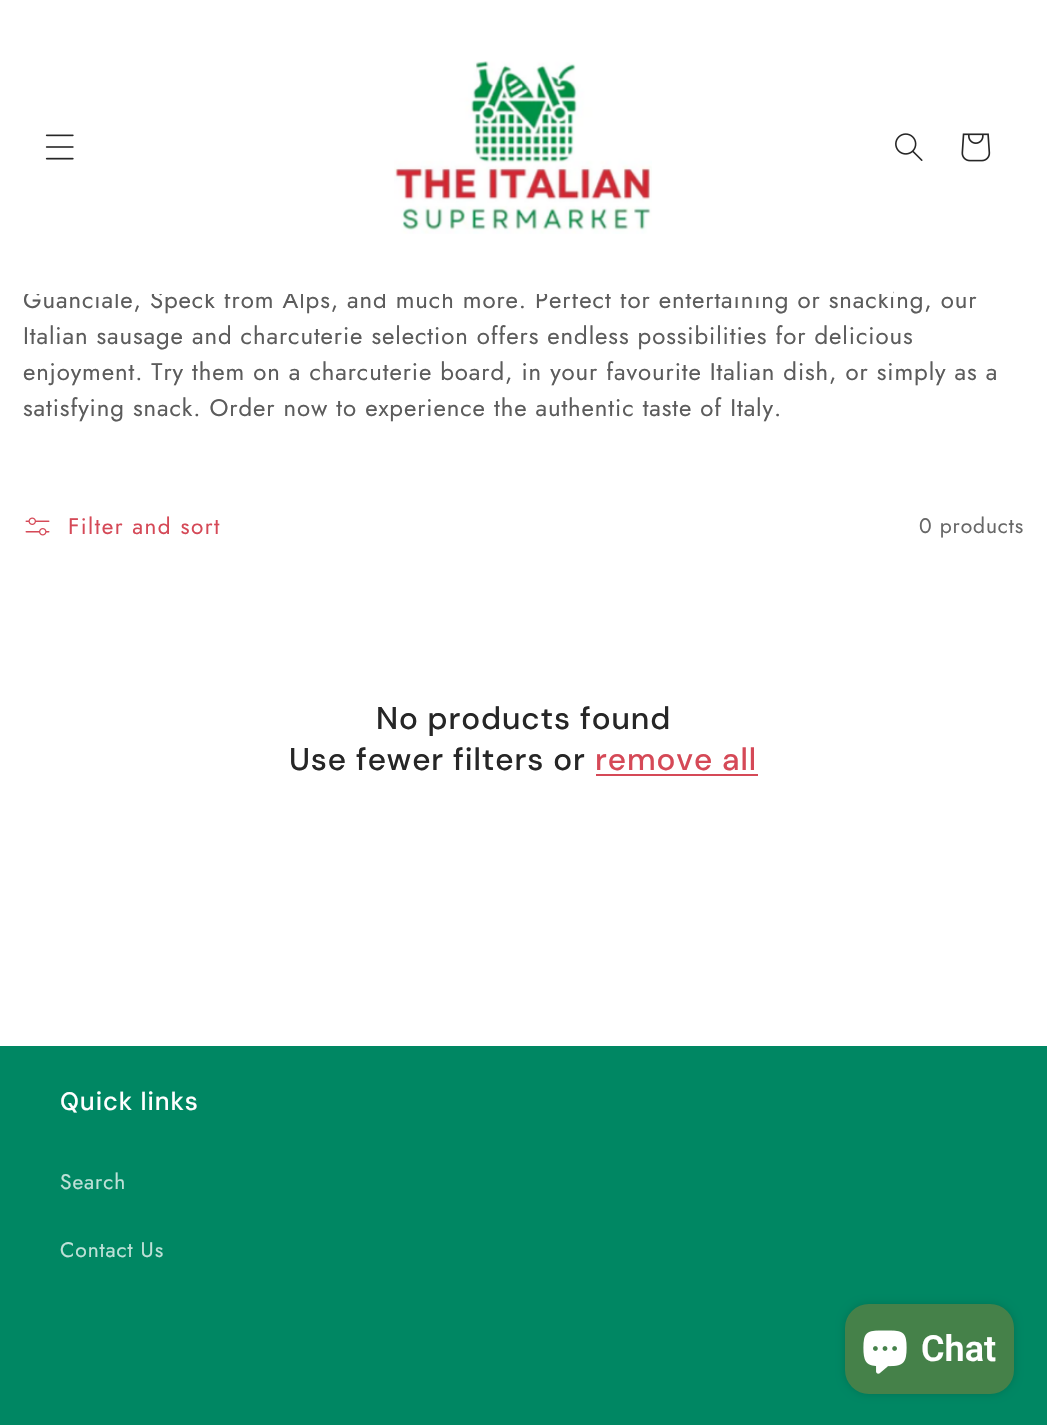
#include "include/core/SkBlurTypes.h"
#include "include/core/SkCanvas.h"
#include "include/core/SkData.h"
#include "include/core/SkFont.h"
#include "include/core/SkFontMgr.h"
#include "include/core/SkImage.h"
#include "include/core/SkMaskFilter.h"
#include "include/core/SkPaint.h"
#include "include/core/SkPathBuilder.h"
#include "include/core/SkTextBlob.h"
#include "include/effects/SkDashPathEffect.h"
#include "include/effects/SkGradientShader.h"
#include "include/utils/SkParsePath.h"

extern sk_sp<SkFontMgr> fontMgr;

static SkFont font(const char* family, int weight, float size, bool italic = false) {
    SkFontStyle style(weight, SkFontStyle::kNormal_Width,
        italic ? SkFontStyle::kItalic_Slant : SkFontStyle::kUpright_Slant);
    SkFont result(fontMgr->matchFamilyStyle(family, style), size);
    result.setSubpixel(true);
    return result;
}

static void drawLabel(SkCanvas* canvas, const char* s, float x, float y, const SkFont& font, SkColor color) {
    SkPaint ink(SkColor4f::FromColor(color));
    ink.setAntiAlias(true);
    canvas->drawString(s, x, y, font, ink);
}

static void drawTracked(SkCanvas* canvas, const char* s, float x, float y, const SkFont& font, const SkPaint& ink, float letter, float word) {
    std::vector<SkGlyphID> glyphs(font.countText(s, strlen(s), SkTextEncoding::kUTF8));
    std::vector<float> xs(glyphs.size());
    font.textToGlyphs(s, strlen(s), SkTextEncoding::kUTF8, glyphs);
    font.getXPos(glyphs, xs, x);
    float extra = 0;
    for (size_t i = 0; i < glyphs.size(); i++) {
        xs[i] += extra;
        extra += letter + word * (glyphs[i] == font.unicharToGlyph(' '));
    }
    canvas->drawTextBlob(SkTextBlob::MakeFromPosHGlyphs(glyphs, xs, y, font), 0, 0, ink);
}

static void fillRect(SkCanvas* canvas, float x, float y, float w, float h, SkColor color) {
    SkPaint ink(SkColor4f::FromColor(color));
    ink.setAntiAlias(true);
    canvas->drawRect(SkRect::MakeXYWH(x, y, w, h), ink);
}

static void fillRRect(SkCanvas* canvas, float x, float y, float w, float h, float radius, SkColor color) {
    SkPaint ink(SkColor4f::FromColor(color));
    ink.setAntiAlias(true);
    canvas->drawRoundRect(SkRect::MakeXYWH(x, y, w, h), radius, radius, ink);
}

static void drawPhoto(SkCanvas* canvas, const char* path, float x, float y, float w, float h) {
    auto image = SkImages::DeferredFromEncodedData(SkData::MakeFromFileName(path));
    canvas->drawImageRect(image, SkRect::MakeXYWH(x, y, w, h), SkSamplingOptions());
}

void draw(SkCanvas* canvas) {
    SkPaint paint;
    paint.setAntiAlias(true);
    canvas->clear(0xFFFFFFFF);
    SkFont font1 = font("Jost", 400, 24);
    paint.setColor(0xFF5C5C5C);
    drawTracked(canvas, "Guanciale, Speck from Alps, and much more. Perfect for entertaining or snacking, our", 23, 308, font1, paint, 0.9f, 0);
    fillRect(canvas, 25, 289, 868, 5, 0xFFFFFFFF);
    drawPhoto(canvas, "assets/img1.png", 45, 134, 29, 26);
    drawPhoto(canvas, "assets/img2.png", 394, 61, 258, 173);
    drawPhoto(canvas, "assets/img3.png", 895, 133, 28, 28);
    drawPhoto(canvas, "assets/img4.png", 961, 133, 30, 29);
    drawTracked(canvas, "Italian sausage and charcuterie selection offers endless possibilities for delicious", 23, 344, font1, paint, 0.9f, 0);
    drawTracked(canvas, "enjoyment. Try them on a charcuterie board, in your favourite Italian dish, or simply as a", 23, 380, font1, paint, 0.9f, 0);
    drawTracked(canvas, "satisfying snack. Order now to experience the authentic taste of Italy.", 23, 416, font1, paint, 0.9f, 0);
    drawPhoto(canvas, "assets/img5.png", 25, 517, 25, 19);
    SkFont font2 = font("Jost", 400, 22.5f);
    paint.setColor(0xFFD54957);
    drawTracked(canvas, "Filter and sort", 68, 534, font2, paint, 1.5f, 0);
    SkFont font3 = font("Jost", 400, 21);
    paint.setColor(0xFF676767);
    drawTracked(canvas, "0 products", 919, 533, font3, paint, 0.9f, 0);
    SkFont font4 = font("DM Sans", 500, 31.5f);
    paint.setColor(0xFF262626);
    drawTracked(canvas, "No products found", 376, 729, font4, paint, 0.9f, 0);
    drawTracked(canvas, "Use fewer filters or", 289, 770, font4, paint, 0.9f, 0);
    paint.setColor(0xFFD54957);
    drawTracked(canvas, "remove all", 595, 770, font4, paint, 0.9f, 0);
    fillRect(canvas, 596, 774, 162, 2, 0xFFD54957);
    fillRect(canvas, 0, 1046, 1047, 379, 0xFF008763);
    SkFont font5 = font("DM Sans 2", 500, 25.25f);
    paint.setColor(0xFFFFFFFF);
    drawTracked(canvas, "Quick links", 60, 1110, font5, paint, 0.9f, 0);
    paint.setColor(0xFFBFE1D8);
    drawTracked(canvas, "Search", 60, 1189, font3, paint, 0.9f, 0);
    drawTracked(canvas, "Contact Us", 60, 1257, font3, paint, 0.9f, 0);
    paint.setColor(0x26000000);
    paint.setMaskFilter(SkMaskFilter::MakeBlur(kNormal_SkBlurStyle, 4));
    canvas->drawRoundRect(SkRect::MakeXYWH(845, 1304, 169, 90), 24, 24, paint);
    paint.setMaskFilter(nullptr);
    fillRRect(canvas, 845, 1304, 169, 90, 24, 0xFF458149);
    drawPhoto(canvas, "assets/img6.png", 863, 1330, 44, 44);
    SkFont font6 = font("Roboto", 600, 36);
    drawLabel(canvas, "Chat", 921, 1361, font6, 0xFFFFFFFF);
}
